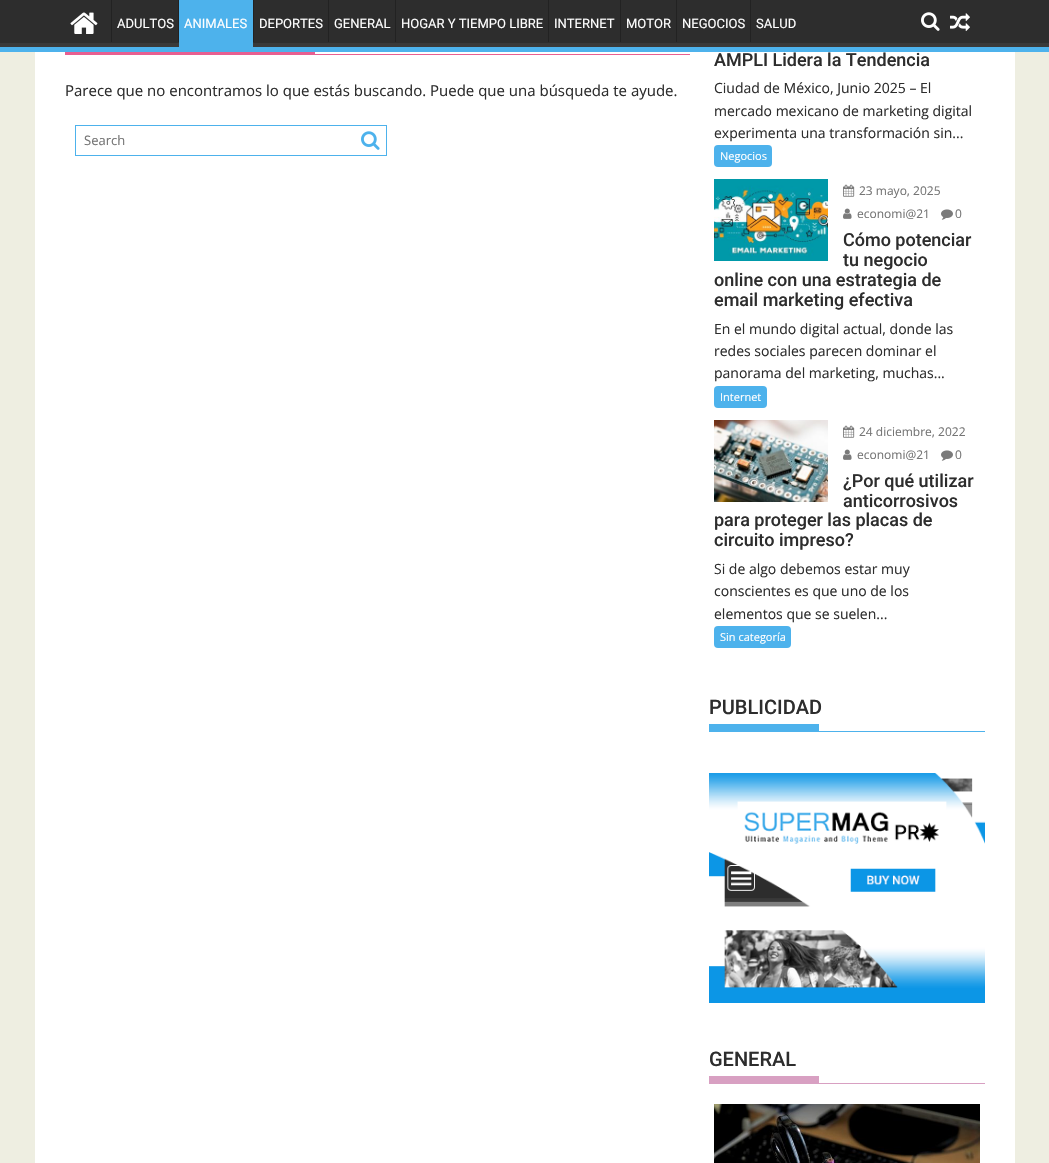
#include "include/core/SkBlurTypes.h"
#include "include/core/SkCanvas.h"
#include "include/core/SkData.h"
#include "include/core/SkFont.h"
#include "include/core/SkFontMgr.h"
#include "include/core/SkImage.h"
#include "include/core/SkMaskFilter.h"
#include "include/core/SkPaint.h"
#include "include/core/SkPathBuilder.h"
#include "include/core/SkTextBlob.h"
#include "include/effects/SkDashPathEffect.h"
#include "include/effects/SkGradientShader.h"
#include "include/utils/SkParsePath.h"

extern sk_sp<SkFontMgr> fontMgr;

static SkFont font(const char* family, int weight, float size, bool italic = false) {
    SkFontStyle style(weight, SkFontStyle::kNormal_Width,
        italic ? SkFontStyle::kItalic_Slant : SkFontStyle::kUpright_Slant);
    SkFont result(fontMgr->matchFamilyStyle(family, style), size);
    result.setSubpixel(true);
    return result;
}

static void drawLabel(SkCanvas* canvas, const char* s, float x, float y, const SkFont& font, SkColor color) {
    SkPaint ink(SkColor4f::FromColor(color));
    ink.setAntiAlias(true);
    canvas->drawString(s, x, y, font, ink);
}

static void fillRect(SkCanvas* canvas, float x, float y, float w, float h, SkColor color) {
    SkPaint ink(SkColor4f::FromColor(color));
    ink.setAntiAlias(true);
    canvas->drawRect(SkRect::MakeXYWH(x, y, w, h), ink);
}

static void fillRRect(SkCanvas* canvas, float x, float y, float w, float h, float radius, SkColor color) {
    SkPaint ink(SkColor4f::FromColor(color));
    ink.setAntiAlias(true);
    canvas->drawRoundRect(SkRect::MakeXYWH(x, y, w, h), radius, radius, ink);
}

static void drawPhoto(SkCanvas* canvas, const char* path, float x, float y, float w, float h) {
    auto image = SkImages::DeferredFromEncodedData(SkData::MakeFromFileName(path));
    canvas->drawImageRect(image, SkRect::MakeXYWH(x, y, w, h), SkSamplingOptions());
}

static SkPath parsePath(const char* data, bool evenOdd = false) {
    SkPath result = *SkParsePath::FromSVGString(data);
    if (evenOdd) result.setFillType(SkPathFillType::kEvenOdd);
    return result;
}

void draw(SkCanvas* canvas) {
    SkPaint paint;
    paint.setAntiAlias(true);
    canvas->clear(0xFFEEEEE1);
    fillRect(canvas, 0, 0, 1049, 43, 0xFF2D2D2D);
    canvas->save();
    canvas->clipRect(SkRect::MakeXYWH(0, 0, 1049, 47));
    paint.setColor(0xFF393939);
    canvas->drawPath(parsePath("M-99-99H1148V146H-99ZM-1-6H1048L1049-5V43H-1L-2 42V-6Z", true), paint);
    canvas->restore();
    fillRect(canvas, 0, 47, 1049, 5, 0xFF4DB2EC);
    drawPhoto(canvas, "assets/img1.png", 70, 12, 28, 22);
    fillRect(canvas, 111, 0, 1, 42, 0xFF222222);
    SkFont font1 = font("Roboto", 400, 13);
    drawLabel(canvas, "ADULTOS", 117, 28, font1, 0xFFFFFFFF);
    fillRect(canvas, 178, 0, 1, 42, 0xFF222222);
    fillRect(canvas, 179, 0, 74, 47, 0xFF4DB2EC);
    drawLabel(canvas, "ANIMALES", 184, 28, font1, 0xFFFFFFFF);
    fillRect(canvas, 253, 0, 1, 42, 0xFF222222);
    drawLabel(canvas, "DEPORTES", 259, 28, font1, 0xFFFFFFFF);
    fillRect(canvas, 328, 0, 1, 42, 0xFF222222);
    drawLabel(canvas, "GENERAL", 334, 28, font1, 0xFFFFFFFF);
    fillRect(canvas, 395, 0, 1, 42, 0xFF222222);
    drawLabel(canvas, "HOGAR Y TIEMPO LIBRE", 401, 28, font1, 0xFFFFFFFF);
    fillRect(canvas, 548, 0, 1, 42, 0xFF222222);
    drawLabel(canvas, "INTERNET", 554, 28, font1, 0xFFFFFFFF);
    fillRect(canvas, 620, 0, 1, 42, 0xFF222222);
    drawLabel(canvas, "MOTOR", 626, 28, font1, 0xFFFFFFFF);
    fillRect(canvas, 676, 0, 1, 42, 0xFF222222);
    drawLabel(canvas, "NEGOCIOS", 682, 28, font1, 0xFFFFFFFF);
    fillRect(canvas, 750, 0, 1, 42, 0xFF222222);
    drawLabel(canvas, "SALUD", 756, 28, font1, 0xFFFFFFFF);
    drawPhoto(canvas, "assets/img2.png", 921, 12, 19, 19);
    drawPhoto(canvas, "assets/img3.png", 950, 13, 20, 18);
    fillRect(canvas, 35, 52, 980, 1111, 0xFFFFFFFF);
    fillRect(canvas, 65, 54, 625, 1, 0xFFE85F91);
    fillRect(canvas, 65, 52, 250, 2, 0xFFE85F91);
    SkFont font2 = font("Open Sans", 400, 15);
    drawLabel(canvas, "Parece que no encontramos lo que estás buscando. Puede que una búsqueda te ayude.", 65, 96, font2, 0xFF2D2D2D);
    paint.setStroke(true);
    paint.setStrokeWidth(1);
    paint.setColor(0xFF4DB2EC);
    canvas->drawRect(SkRect::MakeXYWH(75.5f, 125.5f, 311, 30), paint);
    SkFont font3 = font("Open Sans", 400, 13);
    drawLabel(canvas, "Search", 84, 145, font3, 0xFF757575);
    drawPhoto(canvas, "assets/img4.png", 361, 131, 19, 19);
    SkFont font4 = font("Roboto", 500, 18);
    drawLabel(canvas, "AMPLI Lidera la Tendencia", 714, 66, font4, 0xFF2D2D2D);
    SkFont font5 = font("Open Sans", 400, 14);
    drawLabel(canvas, "Ciudad de México, Junio 2025 – El", 714, 93, font5, 0xFF2D2D2D);
    drawLabel(canvas, "mercado mexicano de marketing digital", 714, 116, font5, 0xFF2D2D2D);
    drawLabel(canvas, "experimenta una transformación sin...", 714, 138, font5, 0xFF2D2D2D);
    fillRRect(canvas, 714, 145, 58, 22, 4, 0xFF4DB2EC);
    SkFont font6 = font("Open Sans", 400, 11);
    drawLabel(canvas, "Negocios", 720, 160, font6, 0xFFFFFFFF);
    drawPhoto(canvas, "assets/img5.png", 714, 179, 114, 82);
    drawPhoto(canvas, "assets/img6.png", 843, 184, 12, 13);
    SkFont font7 = font("Open Sans", 400, 12);
    drawLabel(canvas, "23 mayo, 2025", 859, 195, font7, 0xFF757575);
    drawPhoto(canvas, "assets/img7.png", 843, 208, 9, 11);
    drawLabel(canvas, "economi@21", 857, 218, font7, 0xFF757575);
    drawPhoto(canvas, "assets/img8.png", 941, 209, 12, 11);
    drawLabel(canvas, "0", 955, 218, font7, 0xFF757575);
    drawLabel(canvas, "Cómo potenciar", 843, 246, font4, 0xFF2D2D2D);
    drawLabel(canvas, "tu negocio", 843, 266, font4, 0xFF2D2D2D);
    drawLabel(canvas, "online con una estrategia de", 714, 286, font4, 0xFF2D2D2D);
    drawLabel(canvas, "email marketing efectiva", 714, 306, font4, 0xFF2D2D2D);
    drawLabel(canvas, "En el mundo digital actual, donde las", 714, 334, font5, 0xFF2D2D2D);
    drawLabel(canvas, "redes sociales parecen dominar el", 714, 356, font5, 0xFF2D2D2D);
    drawLabel(canvas, "panorama del marketing, muchas...", 714, 378, font5, 0xFF2D2D2D);
    fillRRect(canvas, 714, 386, 53, 22, 4, 0xFF4DB2EC);
    drawLabel(canvas, "Internet", 720, 401, font6, 0xFFFFFFFF);
    drawPhoto(canvas, "assets/img9.png", 714, 420, 114, 82);
    drawPhoto(canvas, "assets/img6.png", 843, 425, 12, 13);
    drawLabel(canvas, "24 diciembre, 2022", 859, 436, font7, 0xFF757575);
    drawPhoto(canvas, "assets/img7.png", 843, 449, 9, 11);
    drawLabel(canvas, "economi@21", 857, 459, font7, 0xFF757575);
    drawPhoto(canvas, "assets/img8.png", 941, 450, 12, 11);
    drawLabel(canvas, "0", 955, 459, font7, 0xFF757575);
    drawLabel(canvas, "¿Por qué utilizar", 843, 487, font4, 0xFF2D2D2D);
    drawLabel(canvas, "anticorrosivos", 843, 507, font4, 0xFF2D2D2D);
    drawLabel(canvas, "para proteger las placas de", 714, 526, font4, 0xFF2D2D2D);
    drawLabel(canvas, "circuito impreso?", 714, 546, font4, 0xFF2D2D2D);
    drawLabel(canvas, "Si de algo debemos estar muy", 714, 574, font5, 0xFF2D2D2D);
    drawLabel(canvas, "conscientes es que uno de los", 714, 596, font5, 0xFF2D2D2D);
    drawLabel(canvas, "elementos que se suelen...", 714, 619, font5, 0xFF2D2D2D);
    fillRRect(canvas, 714, 626, 77, 22, 4, 0xFF4DB2EC);
    drawLabel(canvas, "Sin categoría", 720, 641, font6, 0xFFFFFFFF);
    fillRect(canvas, 709, 731, 276, 1, 0xFF4DB2EC);
    SkFont font8 = font("Roboto", 500, 20);
    drawLabel(canvas, "PUBLICIDAD", 709, 714, font8, 0xFF2D2D2D);
    fillRect(canvas, 709, 724, 110, 7, 0xFF4DB2EC);
    drawPhoto(canvas, "assets/img10.png", 709, 773, 276, 230);
    fillRect(canvas, 709, 1083, 276, 1, 0xFFD8A0C2);
    drawLabel(canvas, "GENERAL", 709, 1066, font8, 0xFF2D2D2D);
    fillRect(canvas, 709, 1076, 110, 7, 0xFFD8A0C2);
    drawPhoto(canvas, "assets/img11.png", 714, 1104, 266, 59);
}
